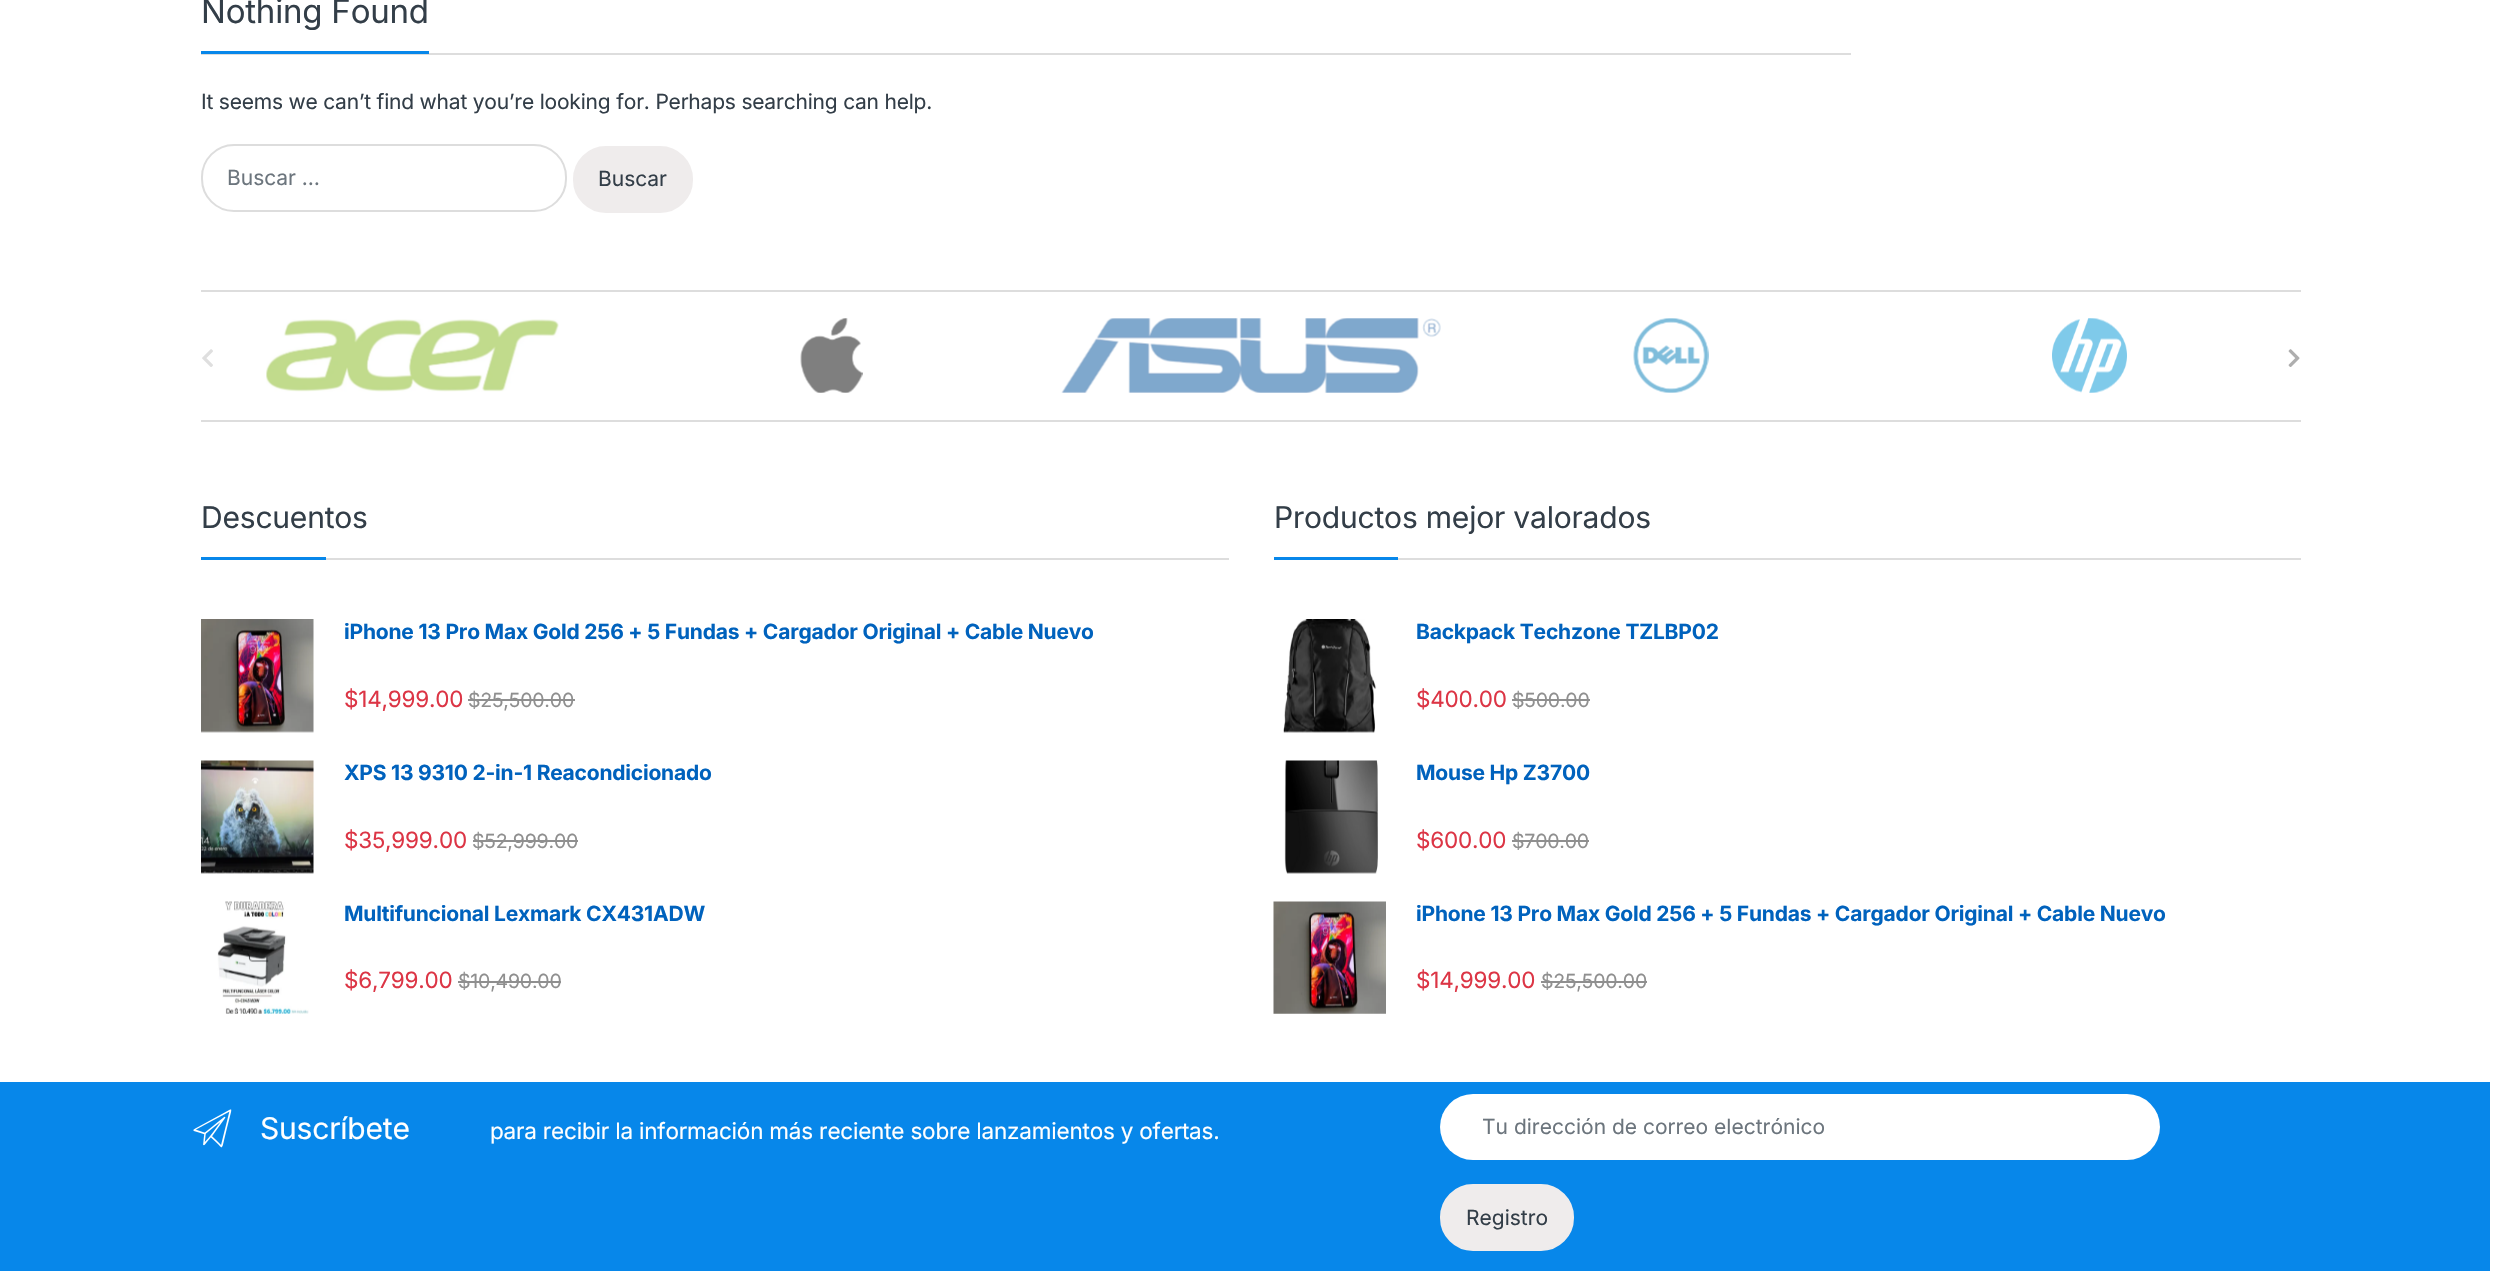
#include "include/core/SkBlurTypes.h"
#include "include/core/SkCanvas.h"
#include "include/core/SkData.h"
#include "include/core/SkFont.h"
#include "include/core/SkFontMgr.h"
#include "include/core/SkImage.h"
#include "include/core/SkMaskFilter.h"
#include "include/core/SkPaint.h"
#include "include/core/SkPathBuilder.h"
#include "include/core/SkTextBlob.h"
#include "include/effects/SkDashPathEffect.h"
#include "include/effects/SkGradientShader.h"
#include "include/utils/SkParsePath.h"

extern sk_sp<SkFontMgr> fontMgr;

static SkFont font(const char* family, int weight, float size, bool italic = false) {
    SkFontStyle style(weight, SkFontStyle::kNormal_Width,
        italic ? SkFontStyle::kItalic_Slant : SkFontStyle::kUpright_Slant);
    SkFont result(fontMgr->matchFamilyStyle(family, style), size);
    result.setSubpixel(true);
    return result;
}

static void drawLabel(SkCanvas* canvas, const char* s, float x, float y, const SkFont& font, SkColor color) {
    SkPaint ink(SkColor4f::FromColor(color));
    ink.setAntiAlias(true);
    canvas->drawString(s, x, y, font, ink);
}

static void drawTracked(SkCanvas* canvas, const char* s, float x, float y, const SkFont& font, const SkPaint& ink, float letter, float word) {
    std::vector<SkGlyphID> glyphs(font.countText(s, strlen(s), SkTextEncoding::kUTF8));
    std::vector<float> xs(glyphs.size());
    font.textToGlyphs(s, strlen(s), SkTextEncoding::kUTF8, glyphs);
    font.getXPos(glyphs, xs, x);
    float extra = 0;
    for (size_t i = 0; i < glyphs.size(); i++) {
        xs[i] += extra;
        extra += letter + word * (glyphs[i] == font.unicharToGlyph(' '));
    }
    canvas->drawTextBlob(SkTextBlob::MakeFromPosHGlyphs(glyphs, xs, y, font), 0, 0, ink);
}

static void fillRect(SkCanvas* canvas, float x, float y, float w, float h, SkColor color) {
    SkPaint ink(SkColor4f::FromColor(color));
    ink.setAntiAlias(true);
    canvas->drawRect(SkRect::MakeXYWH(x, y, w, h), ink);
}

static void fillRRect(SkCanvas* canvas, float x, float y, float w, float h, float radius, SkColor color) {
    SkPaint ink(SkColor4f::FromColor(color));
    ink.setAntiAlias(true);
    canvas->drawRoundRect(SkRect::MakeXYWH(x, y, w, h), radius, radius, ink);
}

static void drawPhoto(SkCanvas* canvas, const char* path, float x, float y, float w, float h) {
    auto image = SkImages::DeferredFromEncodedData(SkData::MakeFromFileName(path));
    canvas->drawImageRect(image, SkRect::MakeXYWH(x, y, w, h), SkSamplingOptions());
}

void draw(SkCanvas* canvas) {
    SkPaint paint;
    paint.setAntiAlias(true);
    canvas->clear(0xFFFFFFFF);
    fillRect(canvas, 201, 53, 1650, 2, 0xFFDDDDDD);
    SkFont font1 = font("Inter", 400, 33);
    paint.setColor(0xFF333E48);
    drawTracked(canvas, "Nothing Found", 201, 23, font1, paint, -0.2f, 0);
    fillRect(canvas, 201, 51, 228, 3, 0xFF0787EA);
    SkFont font2 = font("Inter", 400, 21);
    drawTracked(canvas, "It seems we can’t find what you’re looking for. Perhaps searching can help.", 201, 109, font2, paint, -0.2f, 0);
    paint.setStroke(true);
    paint.setStrokeWidth(2);
    paint.setColor(0xFFDDDDDD);
    canvas->drawRoundRect(SkRect::MakeXYWH(202, 145, 364, 66), 32, 32, paint);
    drawLabel(canvas, "Buscar …", 227, 185, font2, 0xFF6C757D);
    paint.setStroke(false);
    paint.setColor(0xFFEFECEC);
    canvas->drawRoundRect(SkRect::MakeXYWH(574, 147, 118, 65), 32, 32, paint);
    paint.setStroke(true);
    canvas->drawRoundRect(SkRect::MakeXYWH(574, 147, 118, 65), 32, 32, paint);
    drawLabel(canvas, "Buscar", 598, 186, font2, 0xFF333E48);
    fillRect(canvas, 201, 290, 2100, 2, 0xFFDDDDDD);
    fillRect(canvas, 201, 420, 2100, 2, 0xFFDDDDDD);
    drawPhoto(canvas, "assets/img1.png", 266, 319, 293, 73);
    drawPhoto(canvas, "assets/img2.png", 800, 318, 63, 75);
    drawPhoto(canvas, "assets/img3.png", 1061, 318, 380, 75);
    drawPhoto(canvas, "assets/img4.png", 1633, 318, 76, 75);
    drawPhoto(canvas, "assets/img5.png", 2052, 318, 75, 75);
    drawPhoto(canvas, "assets/img6.png", 202, 349, 11, 18);
    drawPhoto(canvas, "assets/img7.png", 2288, 349, 12, 18);
    fillRect(canvas, 326, 558, 903, 2, 0xFFDDDDDD);
    SkFont font3 = font("Inter", 400, 30);
    paint.setStroke(false);
    paint.setColor(0xFF333E48);
    drawTracked(canvas, "Descuentos", 201, 528, font3, paint, -0.2f, 0);
    fillRect(canvas, 201, 557, 125, 3, 0xFF0787EA);
    drawPhoto(canvas, "assets/img8.png", 201, 619, 113, 114);
    SkFont font4 = font("Inter", 700, 21);
    paint.setColor(0xFF0062BD);
    drawTracked(canvas, "iPhone 13 Pro Max Gold 256 + 5 Fundas + Cargador Original + Cable Nuevo", 344, 639, font4, paint, -0.2f, 0);
    SkFont font5 = font("Inter", 400, 22.5f);
    paint.setColor(0xFFDC3545);
    drawTracked(canvas, "$14,999.00", 344, 707, font5, paint, -0.2f, 0);
    SkFont font6 = font("Inter", 400, 19.5f);
    paint.setColor(0xFF8F8F8F);
    drawTracked(canvas, "$25,500.00", 468, 707, font6, paint, -0.2f, 0);
    fillRect(canvas, 468, 699, 107, 2, 0xFF8F8F8F);
    drawPhoto(canvas, "assets/img9.png", 201, 760, 113, 114);
    paint.setColor(0xFF0062BD);
    drawTracked(canvas, "XPS 13 9310 2-in-1 Reacondicionado", 344, 780, font4, paint, -0.2f, 0);
    paint.setColor(0xFFDC3545);
    drawTracked(canvas, "$35,999.00", 344, 848, font5, paint, -0.2f, 0);
    paint.setColor(0xFF8F8F8F);
    drawTracked(canvas, "$52,999.00", 472, 848, font6, paint, -0.2f, 0);
    fillRect(canvas, 473, 840, 105, 2, 0xFF8F8F8F);
    drawPhoto(canvas, "assets/img10.png", 217, 901, 92, 113);
    paint.setColor(0xFF0062BD);
    drawTracked(canvas, "Multifuncional Lexmark CX431ADW", 344, 921, font4, paint, -0.2f, 0);
    paint.setColor(0xFFDC3545);
    drawTracked(canvas, "$6,799.00", 344, 988, font5, paint, -0.2f, 0);
    paint.setColor(0xFF8F8F8F);
    drawTracked(canvas, "$10,490.00", 458, 988, font6, paint, -0.2f, 0);
    fillRect(canvas, 458, 981, 103, 2, 0xFF8F8F8F);
    fillRect(canvas, 1398, 558, 903, 2, 0xFFDDDDDD);
    paint.setColor(0xFF333E48);
    drawTracked(canvas, "Productos mejor valorados", 1274, 528, font3, paint, -0.2f, 0);
    fillRect(canvas, 1274, 557, 124, 3, 0xFF0787EA);
    drawPhoto(canvas, "assets/img11.png", 1283, 619, 94, 114);
    paint.setColor(0xFF0062BD);
    drawTracked(canvas, "Backpack Techzone TZLBP02", 1416, 639, font4, paint, -0.2f, 0);
    paint.setColor(0xFFDC3545);
    drawTracked(canvas, "$400.00", 1416, 707, font5, paint, -0.2f, 0);
    paint.setColor(0xFF8F8F8F);
    drawTracked(canvas, "$500.00", 1512, 707, font6, paint, -0.2f, 0);
    fillRect(canvas, 1512, 699, 78, 2, 0xFF8F8F8F);
    drawPhoto(canvas, "assets/img12.png", 1284, 760, 94, 114);
    paint.setColor(0xFF0062BD);
    drawTracked(canvas, "Mouse Hp Z3700", 1416, 780, font4, paint, -0.2f, 0);
    paint.setColor(0xFFDC3545);
    drawTracked(canvas, "$600.00", 1416, 848, font5, paint, -0.2f, 0);
    paint.setColor(0xFF8F8F8F);
    drawTracked(canvas, "$700.00", 1512, 848, font6, paint, -0.2f, 0);
    fillRect(canvas, 1512, 840, 77, 2, 0xFF8F8F8F);
    drawPhoto(canvas, "assets/img13.png", 1273, 901, 113, 113);
    paint.setColor(0xFF0062BD);
    drawTracked(canvas, "iPhone 13 Pro Max Gold 256 + 5 Fundas + Cargador Original + Cable Nuevo", 1416, 921, font4, paint, -0.2f, 0);
    paint.setColor(0xFFDC3545);
    drawTracked(canvas, "$14,999.00", 1416, 988, font5, paint, -0.2f, 0);
    paint.setColor(0xFF8F8F8F);
    drawTracked(canvas, "$25,500.00", 1541, 988, font6, paint, -0.2f, 0);
    fillRect(canvas, 1541, 981, 106, 2, 0xFF8F8F8F);
    fillRect(canvas, 0, 1082, 2490, 189, 0xFF0787EA);
    drawPhoto(canvas, "assets/img14.png", 193, 1109, 39, 39);
    paint.setColor(0xFFFFFFFF);
    drawTracked(canvas, "Suscríbete", 260, 1139, font3, paint, -0.2f, 0);
    drawTracked(canvas, "para recibir la información más reciente sobre lanzamientos y ofertas.", 490, 1139, font5, paint, -0.2f, 0);
    fillRRect(canvas, 1440, 1094, 720, 66, 33, 0xFFFFFFFF);
    drawLabel(canvas, "Tu dirección de correo electrónico", 1482, 1134, font2, 0xFF6C757D);
    paint.setColor(0xFFEFECEC);
    canvas->drawRoundRect(SkRect::MakeXYWH(1441, 1185, 132, 65), 32, 32, paint);
    paint.setStroke(true);
    canvas->drawRoundRect(SkRect::MakeXYWH(1441, 1185, 132, 65), 32, 32, paint);
    drawLabel(canvas, "Registro", 1466, 1225, font2, 0xFF333E48);
}
